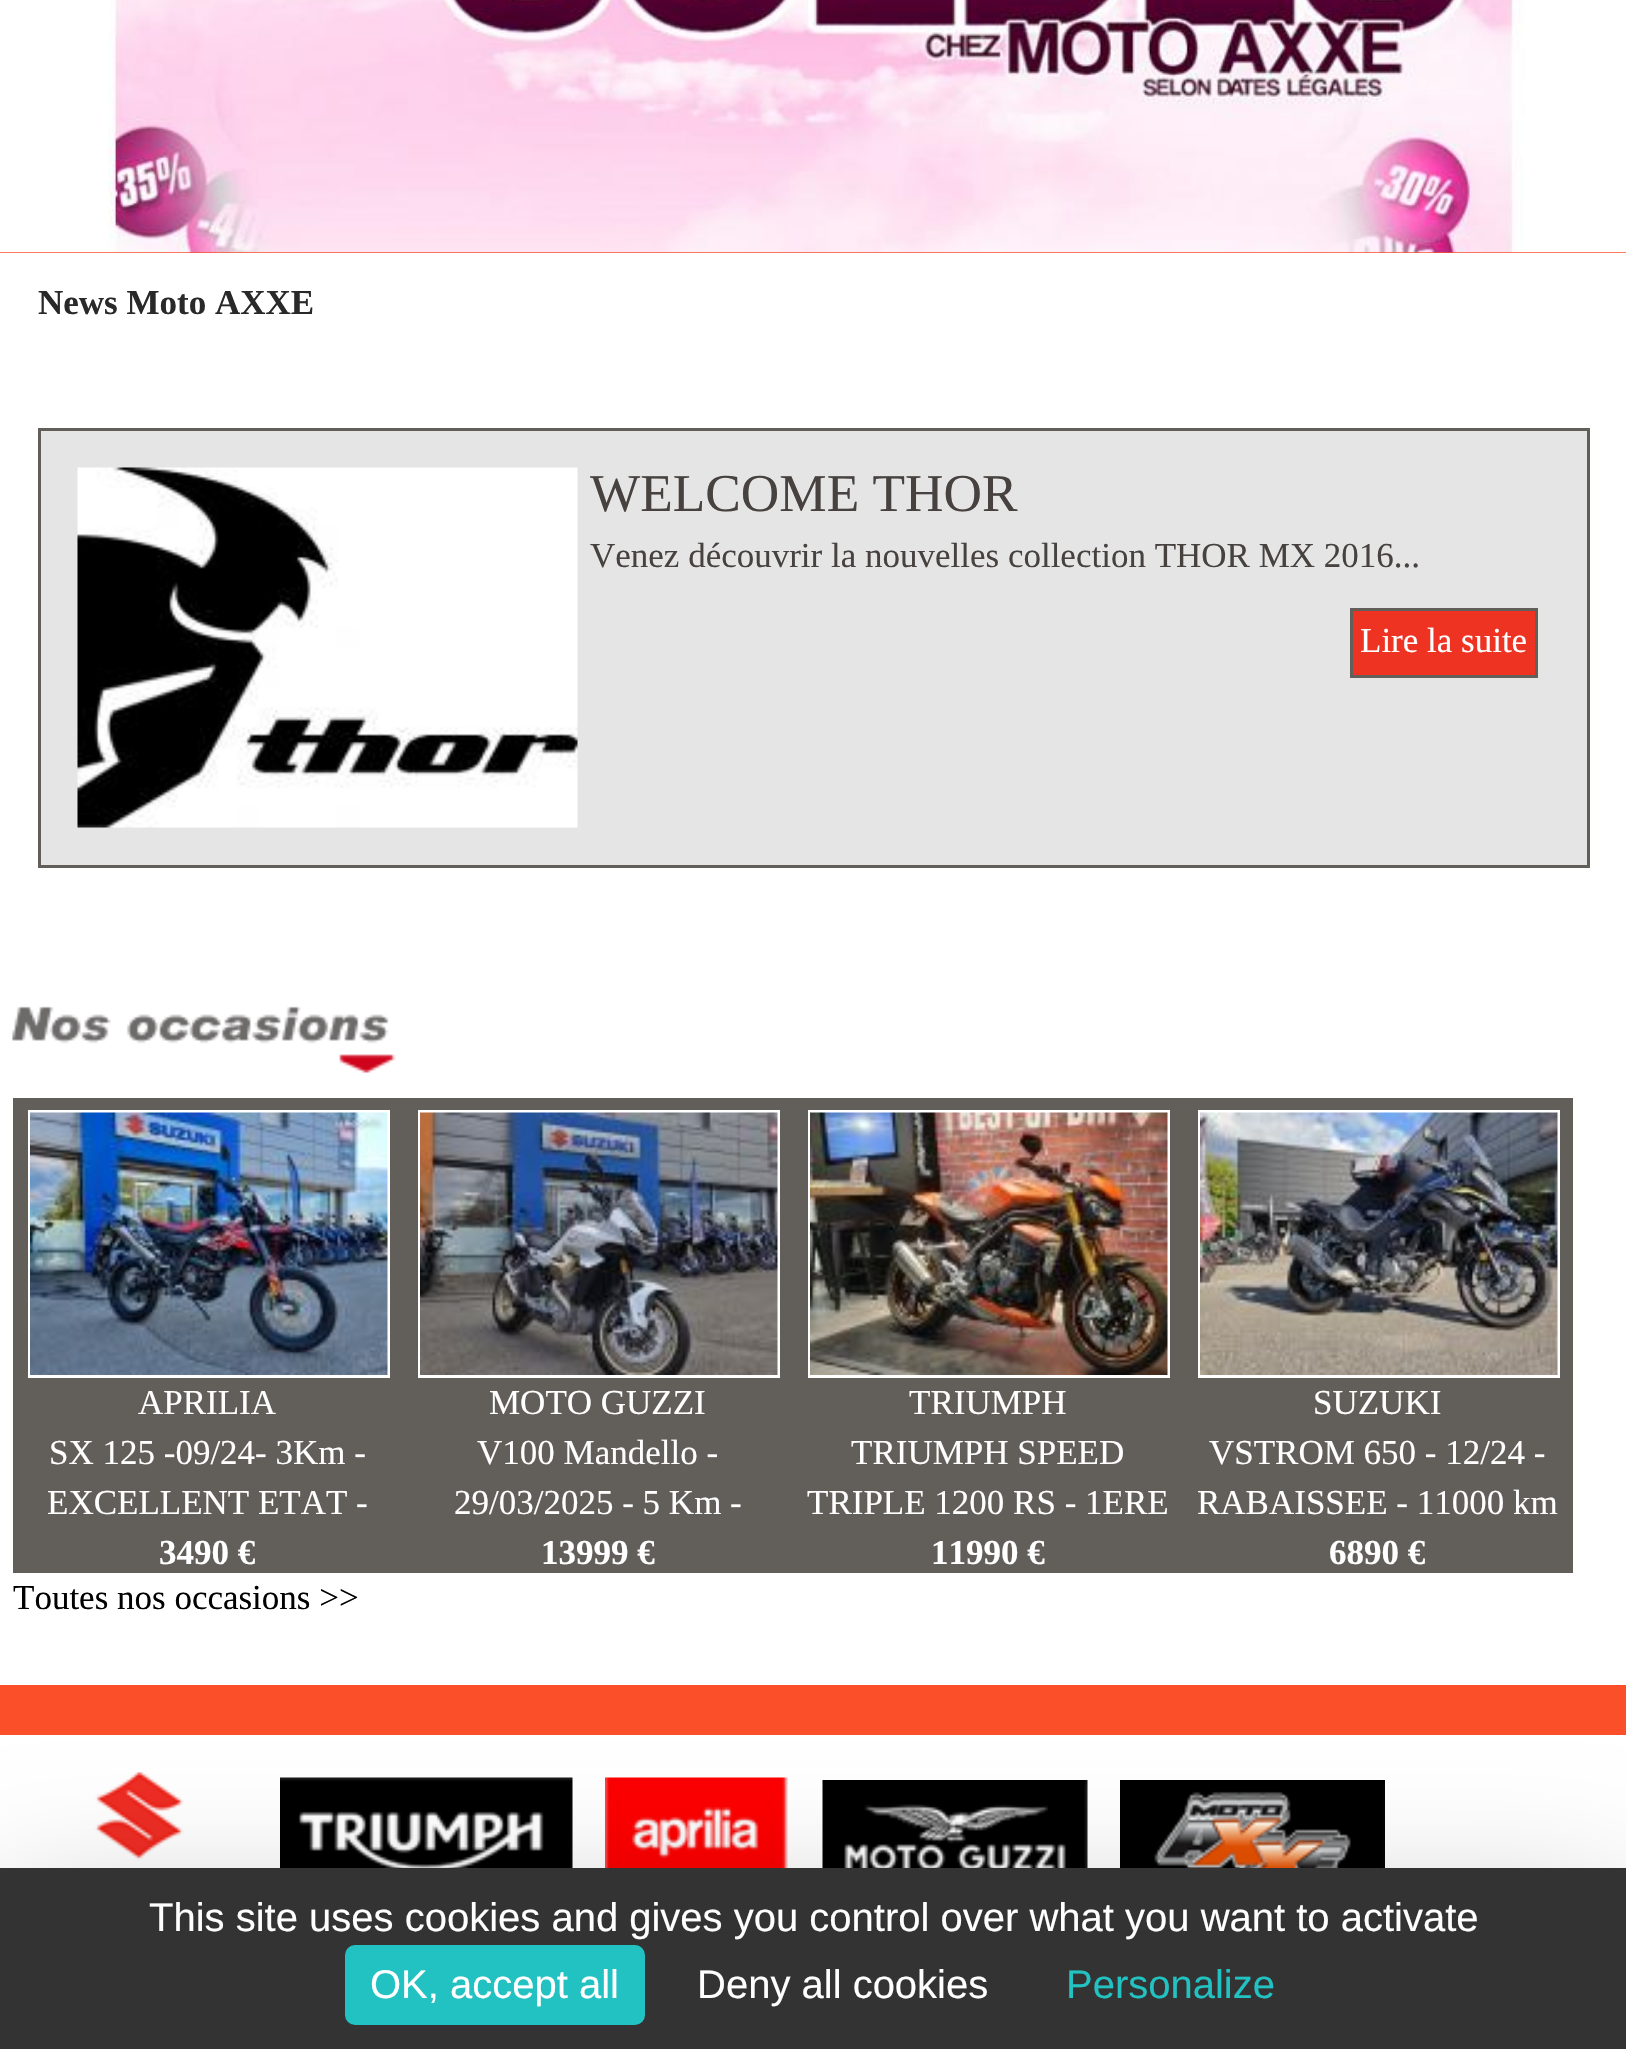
#include "include/core/SkBlurTypes.h"
#include "include/core/SkCanvas.h"
#include "include/core/SkData.h"
#include "include/core/SkFont.h"
#include "include/core/SkFontMgr.h"
#include "include/core/SkImage.h"
#include "include/core/SkMaskFilter.h"
#include "include/core/SkPaint.h"
#include "include/core/SkPathBuilder.h"
#include "include/core/SkTextBlob.h"
#include "include/effects/SkDashPathEffect.h"
#include "include/effects/SkGradientShader.h"
#include "include/utils/SkParsePath.h"

extern sk_sp<SkFontMgr> fontMgr;

static SkFont font(const char* family, int weight, float size, bool italic = false) {
    SkFontStyle style(weight, SkFontStyle::kNormal_Width,
        italic ? SkFontStyle::kItalic_Slant : SkFontStyle::kUpright_Slant);
    SkFont result(fontMgr->matchFamilyStyle(family, style), size);
    result.setSubpixel(true);
    return result;
}

static void drawLabel(SkCanvas* canvas, const char* s, float x, float y, const SkFont& font, SkColor color) {
    SkPaint ink(SkColor4f::FromColor(color));
    ink.setAntiAlias(true);
    canvas->drawString(s, x, y, font, ink);
}

static void fillRect(SkCanvas* canvas, float x, float y, float w, float h, SkColor color) {
    SkPaint ink(SkColor4f::FromColor(color));
    ink.setAntiAlias(true);
    canvas->drawRect(SkRect::MakeXYWH(x, y, w, h), ink);
}

static void fillRRect(SkCanvas* canvas, float x, float y, float w, float h, float radius, SkColor color) {
    SkPaint ink(SkColor4f::FromColor(color));
    ink.setAntiAlias(true);
    canvas->drawRoundRect(SkRect::MakeXYWH(x, y, w, h), radius, radius, ink);
}

static void drawPhoto(SkCanvas* canvas, const char* path, float x, float y, float w, float h) {
    auto image = SkImages::DeferredFromEncodedData(SkData::MakeFromFileName(path));
    canvas->drawImageRect(image, SkRect::MakeXYWH(x, y, w, h), SkSamplingOptions());
}

void draw(SkCanvas* canvas) {
    SkPaint paint;
    paint.setAntiAlias(true);
    canvas->clear(0xFFFA4F29);
    drawPhoto(canvas, "assets/img1.png", 0, 0, 1626, 253);
    fillRect(canvas, 0, 253, 1626, 1432, 0xFFFFFFFF);
    SkFont font1 = font("Liberation Serif", 700, 35);
    drawLabel(canvas, "News Moto AXXE", 38, 314, font1, 0xFF292929);
    paint.setColor(0xFFE5E5E5);
    canvas->drawRect(SkRect::MakeXYWH(39.5f, 429.5f, 1549, 437), paint);
    paint.setStroke(true);
    paint.setStrokeWidth(3);
    paint.setColor(0xFF625F5A);
    canvas->drawRect(SkRect::MakeXYWH(39.5f, 429.5f, 1549, 437), paint);
    drawPhoto(canvas, "assets/img2.png", 77, 467, 501, 361);
    SkFont font2 = font("Liberation Serif", 400, 53.25f);
    drawLabel(canvas, "WELCOME THOR", 590, 511, font2, 0xFF474240);
    SkFont font3 = font("Liberation Serif", 400, 35);
    drawLabel(canvas, "Venez découvrir la nouvelles collection THOR MX 2016...", 590, 567, font3, 0xFF474240);
    paint.setStroke(false);
    paint.setColor(0xFFEE3322);
    canvas->drawRect(SkRect::MakeXYWH(1351.5f, 609.5f, 185, 67), paint);
    paint.setStroke(true);
    paint.setColor(0xFF625F5A);
    canvas->drawRect(SkRect::MakeXYWH(1351.5f, 609.5f, 185, 67), paint);
    drawLabel(canvas, "Lire la suite", 1360, 652, font3, 0xFFFFFFFF);
    drawPhoto(canvas, "assets/img3.png", 12, 1006, 384, 67);
    fillRect(canvas, 13, 1098, 1560, 475, 0xFF625F5A);
    paint.setColor(0xFFFFFFFF);
    canvas->drawRect(SkRect::MakeXYWH(29.5f, 1111.5f, 359, 265), paint);
    drawPhoto(canvas, "assets/img4.png", 30, 1112, 358, 263);
    drawLabel(canvas, "APRILIA", 138, 1414, font3, 0xFFFFFFFF);
    drawLabel(canvas, "SX 125 -09/24- 3Km -", 49, 1464, font3, 0xFFFFFFFF);
    drawLabel(canvas, "EXCELLENT ETAT -", 47, 1514, font3, 0xFFFFFFFF);
    drawLabel(canvas, "3490 €", 159, 1564, font1, 0xFFFFFFFF);
    canvas->drawRect(SkRect::MakeXYWH(419.5f, 1111.5f, 359, 265), paint);
    drawPhoto(canvas, "assets/img5.png", 420, 1112, 358, 263);
    drawLabel(canvas, "MOTO GUZZI", 489, 1414, font3, 0xFFFFFFFF);
    drawLabel(canvas, "V100 Mandello -", 477, 1464, font3, 0xFFFFFFFF);
    drawLabel(canvas, "29/03/2025 - 5 Km -", 454, 1514, font3, 0xFFFFFFFF);
    drawLabel(canvas, "13999 €", 541, 1564, font1, 0xFFFFFFFF);
    canvas->drawRect(SkRect::MakeXYWH(809.5f, 1111.5f, 359, 265), paint);
    drawPhoto(canvas, "assets/img6.png", 810, 1112, 358, 263);
    drawLabel(canvas, "TRIUMPH", 909, 1414, font3, 0xFFFFFFFF);
    drawLabel(canvas, "TRIUMPH SPEED", 851, 1464, font3, 0xFFFFFFFF);
    drawLabel(canvas, "TRIPLE 1200 RS - 1ERE", 807, 1514, font3, 0xFFFFFFFF);
    drawLabel(canvas, "11990 €", 931, 1564, font1, 0xFFFFFFFF);
    canvas->drawRect(SkRect::MakeXYWH(1199.5f, 1111.5f, 359, 265), paint);
    drawPhoto(canvas, "assets/img7.png", 1200, 1112, 358, 263);
    drawLabel(canvas, "SUZUKI", 1313, 1414, font3, 0xFFFFFFFF);
    drawLabel(canvas, "VSTROM 650 - 12/24 -", 1209, 1464, font3, 0xFFFFFFFF);
    drawLabel(canvas, "RABAISSEE - 11000 km", 1197, 1514, font3, 0xFFFFFFFF);
    drawLabel(canvas, "6890 €", 1329, 1564, font1, 0xFFFFFFFF);
    drawLabel(canvas, "Toutes nos occasions >>", 13, 1609, font3, 0xFF000000);
    fillRect(canvas, 0, 1735, 1626, 133, 0xFFFFFFFF);
    drawPhoto(canvas, "assets/img8.png", 44, 1772, 197, 96);
    drawPhoto(canvas, "assets/img9.png", 280, 1777, 293, 91);
    drawPhoto(canvas, "assets/img10.png", 605, 1777, 183, 91);
    drawPhoto(canvas, "assets/img11.png", 822, 1780, 266, 88);
    drawPhoto(canvas, "assets/img12.png", 1120, 1780, 265, 88);
    paint.setStroke(false);
    paint.setColor(0x40000000);
    paint.setMaskFilter(SkMaskFilter::MakeBlur(kNormal_SkBlurStyle, 75));
    canvas->drawRect(SkRect::MakeXYWH(0, 1918, 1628, 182), paint);
    paint.setMaskFilter(nullptr);
    fillRect(canvas, 0, 1868, 1626, 181, 0xFF333333);
    SkFont font4 = font("Liberation Sans", 400, 40);
    drawLabel(canvas, "This site uses cookies and gives you control over what you want to activate", 149, 1931, font4, 0xFFFFFFFF);
    fillRRect(canvas, 345, 1945, 300, 80, 10, 0xFF23C2C2);
    drawLabel(canvas, "OK, accept all", 370, 1998, font4, 0xFFFFFFFF);
    drawLabel(canvas, "Deny all cookies", 697, 1998, font4, 0xFFFFFFFF);
    drawLabel(canvas, "Personalize", 1066, 1998, font4, 0xFF23C2C2);
}
